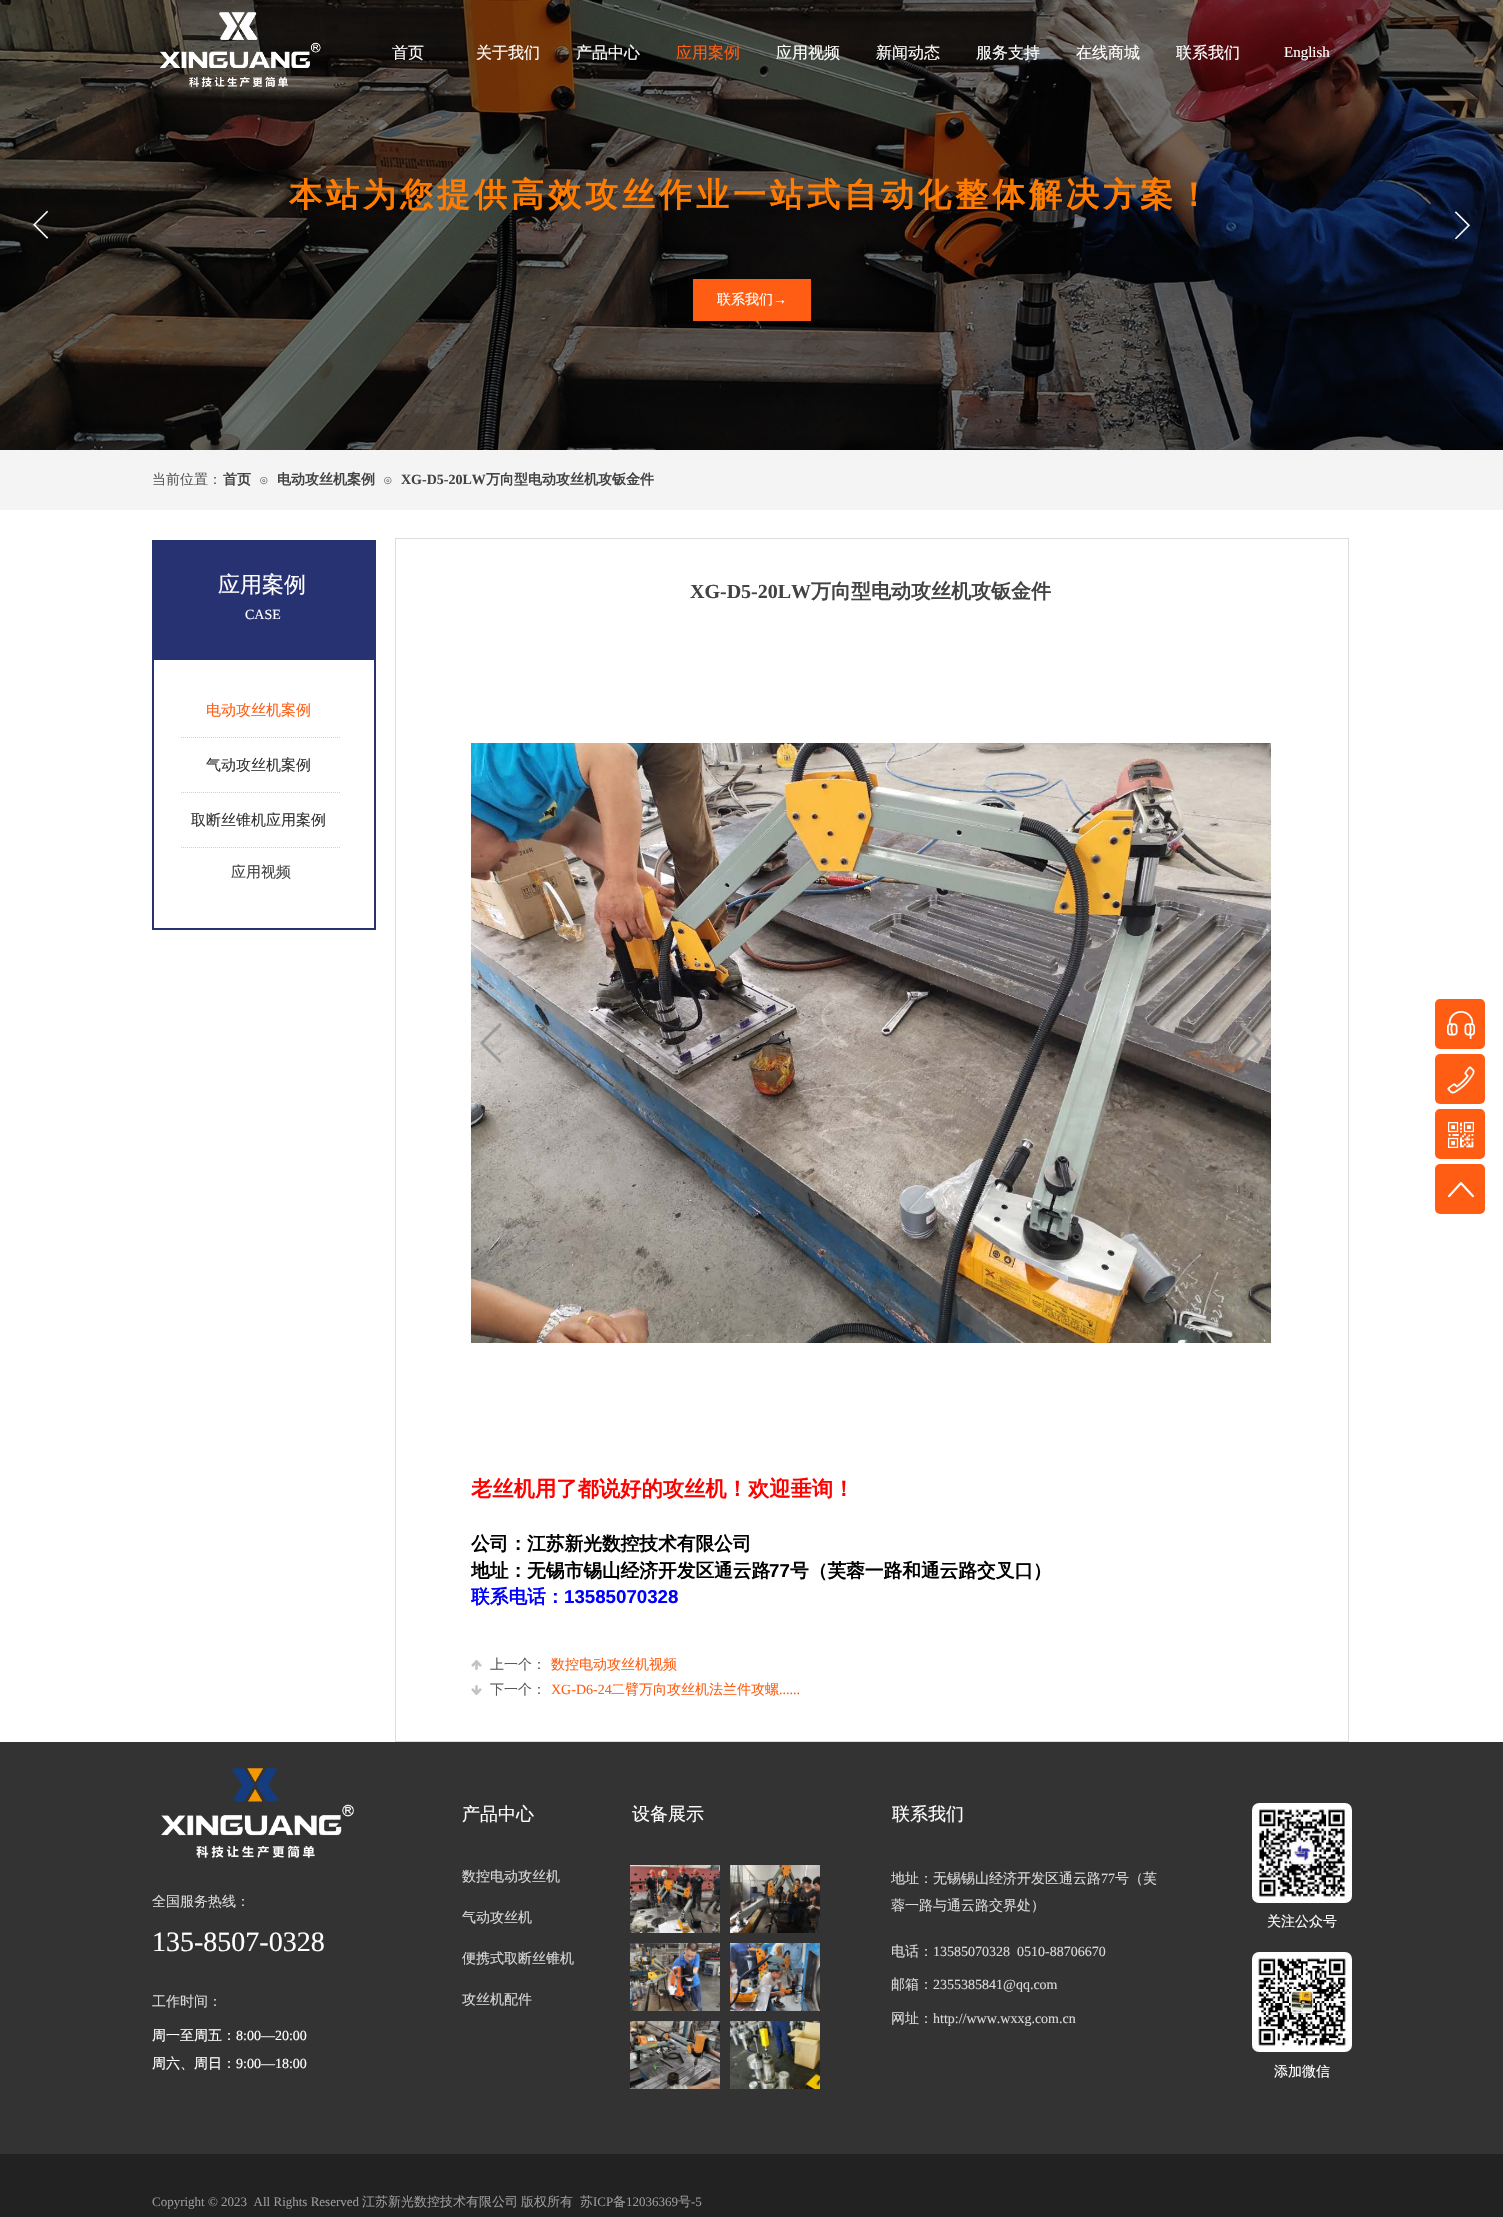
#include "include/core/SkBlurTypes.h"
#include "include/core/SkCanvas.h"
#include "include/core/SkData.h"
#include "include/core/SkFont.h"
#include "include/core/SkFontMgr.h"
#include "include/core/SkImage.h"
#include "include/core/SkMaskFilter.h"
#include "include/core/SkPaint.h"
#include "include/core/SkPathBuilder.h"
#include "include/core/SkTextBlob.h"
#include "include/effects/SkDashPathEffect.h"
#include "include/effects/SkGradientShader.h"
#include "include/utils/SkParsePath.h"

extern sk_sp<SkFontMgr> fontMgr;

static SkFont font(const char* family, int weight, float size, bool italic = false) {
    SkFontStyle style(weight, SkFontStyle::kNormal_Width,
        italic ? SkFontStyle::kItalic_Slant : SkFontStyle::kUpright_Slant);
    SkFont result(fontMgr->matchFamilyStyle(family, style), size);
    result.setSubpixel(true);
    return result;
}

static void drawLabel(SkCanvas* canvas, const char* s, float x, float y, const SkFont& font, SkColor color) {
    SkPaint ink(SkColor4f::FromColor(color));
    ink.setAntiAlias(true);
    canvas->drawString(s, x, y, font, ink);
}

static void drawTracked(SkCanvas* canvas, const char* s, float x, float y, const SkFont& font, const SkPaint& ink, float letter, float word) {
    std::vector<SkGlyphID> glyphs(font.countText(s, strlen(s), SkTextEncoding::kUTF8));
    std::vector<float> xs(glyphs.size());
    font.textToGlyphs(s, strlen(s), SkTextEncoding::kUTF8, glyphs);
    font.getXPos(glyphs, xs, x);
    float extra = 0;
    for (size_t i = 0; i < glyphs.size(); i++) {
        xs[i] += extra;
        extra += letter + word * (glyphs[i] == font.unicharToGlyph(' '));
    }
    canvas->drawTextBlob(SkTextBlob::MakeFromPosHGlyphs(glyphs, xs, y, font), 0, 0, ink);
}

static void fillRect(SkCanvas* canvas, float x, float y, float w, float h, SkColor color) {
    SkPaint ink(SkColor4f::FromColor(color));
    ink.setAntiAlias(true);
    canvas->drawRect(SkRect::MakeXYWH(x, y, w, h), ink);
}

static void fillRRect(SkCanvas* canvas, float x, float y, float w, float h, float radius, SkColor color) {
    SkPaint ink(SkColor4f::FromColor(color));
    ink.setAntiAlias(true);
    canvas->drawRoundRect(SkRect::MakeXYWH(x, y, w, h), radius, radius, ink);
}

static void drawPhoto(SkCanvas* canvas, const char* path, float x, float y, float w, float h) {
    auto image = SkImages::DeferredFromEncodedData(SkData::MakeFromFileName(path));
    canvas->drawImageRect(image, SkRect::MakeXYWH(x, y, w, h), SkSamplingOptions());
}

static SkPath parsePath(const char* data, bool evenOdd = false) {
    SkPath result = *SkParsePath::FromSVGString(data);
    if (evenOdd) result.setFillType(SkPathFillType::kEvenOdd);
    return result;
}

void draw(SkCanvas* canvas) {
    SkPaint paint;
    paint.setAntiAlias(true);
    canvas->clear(0xFFFFFFFF);
    drawPhoto(canvas, "assets/img1.png", 0, 0, 1503, 450);
    drawPhoto(canvas, "assets/img2.png", 32, 210, 17, 29);
    drawPhoto(canvas, "assets/img3.png", 1454, 211, 17, 29);
    drawPhoto(canvas, "assets/img4.png", 160, 12, 161, 76);
    SkFont font1 = font("WenQuanYi Zen Hei", 500, 16);
    drawLabel(canvas, "首页", 392, 58, font1, 0xFFFFFFFF);
    drawLabel(canvas, "关于我们", 476, 58, font1, 0xFFFFFFFF);
    drawLabel(canvas, "产品中心", 576, 58, font1, 0xFFFFFFFF);
    drawLabel(canvas, "应用案例", 676, 58, font1, 0xFFFF5E14);
    drawLabel(canvas, "应用视频", 776, 58, font1, 0xFFFFFFFF);
    drawLabel(canvas, "新闻动态", 876, 58, font1, 0xFFFFFFFF);
    drawLabel(canvas, "服务支持", 976, 58, font1, 0xFFFFFFFF);
    drawLabel(canvas, "在线商城", 1076, 58, font1, 0xFFFFFFFF);
    drawLabel(canvas, "联系我们", 1176, 58, font1, 0xFFFFFFFF);
    SkFont font2 = font("Liberation Serif", 400, 15);
    drawLabel(canvas, "English", 1284, 57, font2, 0xFFFFFFFF);
    SkFont font3 = font("WenQuanYi Zen Hei", 700, 33);
    paint.setColor(0xFFFF7C00);
    drawTracked(canvas, "本站为您提供高效攻丝作业一站式自动化整体解决方案！", 289, 206, font3, paint, 4, 0);
    fillRect(canvas, 693, 279, 118, 42, 0xFFFE5D13);
    SkFont font4 = font("WenQuanYi Zen Hei", 500, 14);
    drawLabel(canvas, "联系我们", 717, 304, font4, 0xFFFFFFFF);
    SkFont font5 = font("Liberation Serif", 400, 14);
    drawLabel(canvas, "→", 773, 304, font5, 0xFFFFFFFF);
    fillRect(canvas, 0, 450, 1503, 60, 0xFFF4F4F4);
    drawLabel(canvas, "当前位置：", 152, 484, font4, 0xFF5A5A5A);
    SkFont font6 = font("WenQuanYi Zen Hei", 700, 14);
    drawLabel(canvas, "首页", 223, 484, font6, 0xFF434343);
    SkFont font7 = font("WenQuanYi Zen Hei", 500, 12);
    drawLabel(canvas, "⊙", 259, 484, font7, 0xFF666666);
    drawLabel(canvas, "电动攻丝机案例", 277, 484, font6, 0xFF434343);
    drawLabel(canvas, "⊙", 383, 484, font7, 0xFF666666);
    SkFont font8 = font("Liberation Serif", 700, 14);
    drawLabel(canvas, "XG-D5-20LW", 401, 484, font8, 0xFF434343);
    drawLabel(canvas, "万向型电动攻丝机攻钣金件", 486, 484, font6, 0xFF434343);
    paint.setStroke(true);
    paint.setStrokeWidth(2);
    paint.setColor(0xFF273272);
    canvas->drawRect(SkRect::MakeXYWH(153, 541, 222, 388), paint);
    fillRect(canvas, 154, 542, 220, 118, 0xFF273272);
    SkFont font9 = font("WenQuanYi Zen Hei", 500, 22);
    drawLabel(canvas, "应用案例", 218, 592, font9, 0xFFFFFFFF);
    drawLabel(canvas, "CASE", 245, 619, font5, 0xFFFFFFFF);
    paint.setStrokeWidth(1);
    paint.setColor(0xFFD0D0D0);
    paint.setPathEffect(SkDashPathEffect::Make({{1, 1}}, 0));
    canvas->drawPath(parsePath("M181 847.5H341"), paint);
    paint.setPathEffect(nullptr);
    paint.setPathEffect(SkDashPathEffect::Make({{1, 1}}, 0));
    canvas->drawPath(parsePath("M181 737.5H341"), paint);
    paint.setPathEffect(nullptr);
    SkFont font10 = font("WenQuanYi Zen Hei", 500, 15);
    drawLabel(canvas, "电动攻丝机案例", 206, 715, font10, 0xFFFF5E14);
    paint.setPathEffect(SkDashPathEffect::Make({{1, 1}}, 0));
    canvas->drawPath(parsePath("M181 792.5H341"), paint);
    paint.setPathEffect(nullptr);
    drawLabel(canvas, "气动攻丝机案例", 206, 770, font10, 0xFF333333);
    drawLabel(canvas, "取断丝锥机应用案例", 191, 825, font10, 0xFF333333);
    drawLabel(canvas, "应用视频", 231, 877, font10, 0xFF434343);
    paint.setColor(0xFFDDDDDD);
    canvas->drawRect(SkRect::MakeXYWH(395.5f, 538.5f, 953, 1203), paint);
    SkFont font11 = font("Liberation Serif", 700, 20);
    drawLabel(canvas, "XG-D5-20LW", 690, 598, font11, 0xFF434343);
    SkFont font12 = font("WenQuanYi Zen Hei", 700, 20);
    drawLabel(canvas, "万向型电动攻丝机攻钣金件", 811, 598, font12, 0xFF434343);
    drawPhoto(canvas, "assets/img5.png", 471, 743, 800, 600);
    drawPhoto(canvas, "assets/img6.png", 480, 1023, 22, 40);
    drawPhoto(canvas, "assets/img7.png", 1240, 1023, 22, 40);
    SkFont font13 = font("WenQuanYi Zen Hei", 700, 21.3f);
    drawLabel(canvas, "老丝机用了都说好的攻丝机！欢迎垂询！", 471, 1496, font13, 0xFFFF0000);
    SkFont font14 = font("WenQuanYi Zen Hei", 700, 18.7f);
    drawLabel(canvas, "公司：江苏新光数控技术有限公司", 471, 1550, font14, 0xFF000000);
    canvas->save();
    canvas->clipRect(SkRect::MakeXYWH(471, 577, 800, 1125));
    drawLabel(canvas, "地址：无锡市锡山经济开发区通云路", 471, 1577, font14, 0xFF000000);
    canvas->restore();
    SkFont font15 = font("Liberation Sans", 700, 18.7f);
    drawLabel(canvas, "77", 769, 1577, font15, 0xFF000000);
    drawLabel(canvas, "号（芙蓉一路和通云路交叉口）", 790, 1577, font14, 0xFF000000);
    canvas->save();
    canvas->clipRect(SkRect::MakeXYWH(471, 577, 800, 1125));
    drawLabel(canvas, "联系电话：", 471, 1603, font14, 0xFF0000FF);
    canvas->restore();
    drawLabel(canvas, "13585070328", 564, 1603, font15, 0xFF0000FF);
    fillRect(canvas, 471, 1660, 11, 10, 0xFFC2C2C2);
    drawPhoto(canvas, "assets/img8.png", 471, 1660, 11, 10);
    drawLabel(canvas, "上一个：", 490, 1669, font4, 0xFF5A5A5A);
    drawLabel(canvas, "数控电动攻丝机视频", 551, 1669, font4, 0xFFFF5E14);
    fillRect(canvas, 471, 1685, 11, 10, 0xFFC2C2C2);
    drawPhoto(canvas, "assets/img9.png", 471, 1685, 11, 10);
    drawLabel(canvas, "下一个：", 490, 1694, font4, 0xFF5A5A5A);
    drawLabel(canvas, "XG-D6-24", 551, 1694, font5, 0xFFFF5E14);
    drawLabel(canvas, "二臂万向攻丝机法兰件攻螺", 611, 1694, font4, 0xFFFF5E14);
    drawLabel(canvas, "......", 779, 1694, font5, 0xFFFF5E14);
    fillRect(canvas, 0, 1742, 1503, 412, 0xFF333333);
    drawPhoto(canvas, "assets/img10.png", 161, 1768, 193, 90);
    SkFont font16 = font("WenQuanYi Zen Hei", 500, 18);
    drawLabel(canvas, "产品中心", 462, 1820, font16, 0xFFFFFFFF);
    drawLabel(canvas, "设备展示", 632, 1820, font16, 0xFFFFFFFF);
    canvas->save();
    canvas->clipRect(SkRect::MakeXYWH(892, 1802, 91, 31));
    drawLabel(canvas, "联系我们", 892, 1820, font16, 0xFFFFFFFF);
    canvas->restore();
    drawPhoto(canvas, "assets/img11.png", 1252, 1803, 100, 100);
    drawLabel(canvas, "全国服务热线：", 152, 1906, font4, 0xFFD9D9D9);
    drawLabel(canvas, "数控电动攻丝机", 462, 1881, font4, 0xFFD9D9D9);
    drawLabel(canvas, "气动攻丝机", 462, 1922, font4, 0xFFD9D9D9);
    drawLabel(canvas, "便携式取断丝锥机", 462, 1963, font4, 0xFFD9D9D9);
    drawLabel(canvas, "攻丝机配件", 462, 2004, font4, 0xFFD9D9D9);
    drawPhoto(canvas, "assets/img12.png", 630, 1865, 90, 68);
    drawPhoto(canvas, "assets/img13.png", 730, 1865, 90, 68);
    drawPhoto(canvas, "assets/img14.png", 630, 1943, 90, 68);
    drawPhoto(canvas, "assets/img15.png", 730, 1943, 90, 68);
    drawPhoto(canvas, "assets/img16.png", 630, 2021, 90, 68);
    drawPhoto(canvas, "assets/img17.png", 730, 2021, 90, 68);
    canvas->save();
    canvas->clipRect(SkRect::MakeXYWH(891, 1862, 278, 250));
    drawLabel(canvas, "地址：", 891, 1883, font4, 0xFFD9D9D9);
    canvas->restore();
    drawLabel(canvas, "无锡锡山经济开发区通云路", 933, 1883, font4, 0xFFD9D9D9);
    drawLabel(canvas, "77", 1101, 1883, font5, 0xFFD9D9D9);
    drawLabel(canvas, "号（芙", 1115, 1883, font4, 0xFFD9D9D9);
    drawLabel(canvas, "蓉一路与通云路交界处）", 891, 1910, font4, 0xFFD9D9D9);
    drawLabel(canvas, "电话：", 891, 1956, font4, 0xFFD9D9D9);
    drawLabel(canvas, "13585070328  0510-88706670", 933, 1956, font5, 0xFFD9D9D9);
    drawLabel(canvas, "邮箱：", 891, 1989, font4, 0xFFD9D9D9);
    drawLabel(canvas, "2355385841@qq.com", 933, 1989, font5, 0xFFD9D9D9);
    drawLabel(canvas, "网址：", 891, 2023, font4, 0xFFD9D9D9);
    drawLabel(canvas, "http://www.wxxg.com.cn", 933, 2023, font5, 0xFFD9D9D9);
    drawLabel(canvas, "关注公众号", 1267, 1926, font4, 0xFFFFFFFF);
    SkFont font17 = font("Liberation Serif", 400, 28);
    drawLabel(canvas, "135-8507-0328", 152, 1951, font17, 0xFFFFFFFF);
    drawLabel(canvas, "工作时间：", 152, 2006, font4, 0xFFD9D9D9);
    drawPhoto(canvas, "assets/img18.png", 1252, 1952, 100, 100);
    drawLabel(canvas, "周一至周五：", 152, 2040, font4, 0xFFFFFFFF);
    drawLabel(canvas, "8:00—20:00", 236, 2040, font5, 0xFFFFFFFF);
    drawLabel(canvas, "周六、周日：", 152, 2068, font4, 0xFFFFFFFF);
    drawLabel(canvas, "9:00—18:00", 236, 2068, font5, 0xFFFFFFFF);
    drawLabel(canvas, "添加微信", 1274, 2076, font4, 0xFFFFFFFF);
    fillRect(canvas, 0, 2154, 1503, 63, 0xFF222222);
    SkFont font18 = font("Liberation Serif", 400, 13);
    drawLabel(canvas, "Copyright © 2023  All Rights Reserved", 152, 2206, font18, 0xFF999999);
    SkFont font19 = font("WenQuanYi Zen Hei", 500, 13);
    drawLabel(canvas, "江苏新光数控技术有限公司", 362, 2206, font19, 0xFF999999);
    drawLabel(canvas, "版权所有", 521, 2206, font19, 0xFF999999);
    drawLabel(canvas, "苏", 580, 2206, font19, 0xFF999999);
    drawLabel(canvas, "ICP", 593, 2206, font18, 0xFF999999);
    drawLabel(canvas, "备", 613, 2206, font19, 0xFF999999);
    drawLabel(canvas, "12036369", 626, 2206, font18, 0xFF999999);
    drawLabel(canvas, "号", 678, 2206, font19, 0xFF999999);
    drawLabel(canvas, "-5", 691, 2206, font18, 0xFF999999);
    fillRRect(canvas, 1435, 999, 50, 50, 5, 0xFFFE5D13);
    drawPhoto(canvas, "assets/img19.png", 1447, 1011, 28, 28);
    fillRRect(canvas, 1435, 1054, 50, 50, 5, 0xFFFE5D13);
    drawPhoto(canvas, "assets/img20.png", 1447, 1066, 28, 28);
    fillRRect(canvas, 1435, 1109, 50, 50, 5, 0xFFFE5D13);
    drawPhoto(canvas, "assets/img21.png", 1448, 1122, 26, 26);
    fillRRect(canvas, 1435, 1164, 50, 50, 5, 0xFFFE5D13);
    drawPhoto(canvas, "assets/img22.png", 1448, 1182, 26, 16);
}
